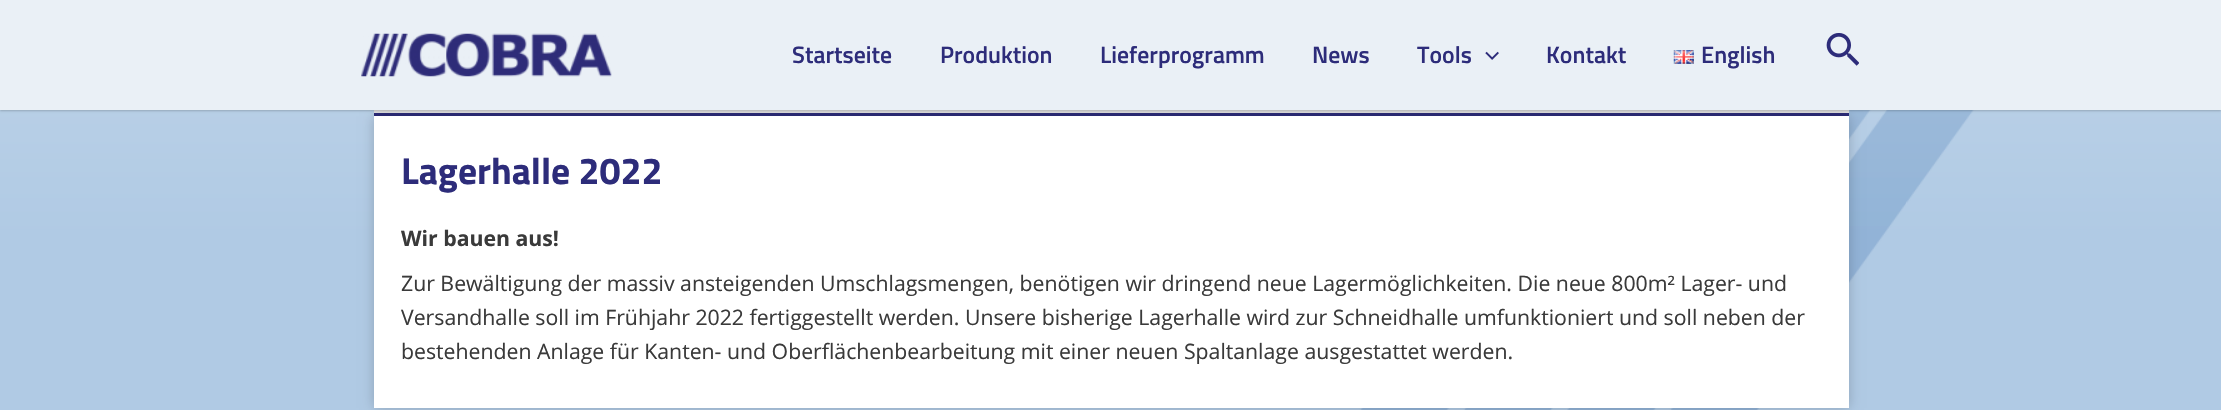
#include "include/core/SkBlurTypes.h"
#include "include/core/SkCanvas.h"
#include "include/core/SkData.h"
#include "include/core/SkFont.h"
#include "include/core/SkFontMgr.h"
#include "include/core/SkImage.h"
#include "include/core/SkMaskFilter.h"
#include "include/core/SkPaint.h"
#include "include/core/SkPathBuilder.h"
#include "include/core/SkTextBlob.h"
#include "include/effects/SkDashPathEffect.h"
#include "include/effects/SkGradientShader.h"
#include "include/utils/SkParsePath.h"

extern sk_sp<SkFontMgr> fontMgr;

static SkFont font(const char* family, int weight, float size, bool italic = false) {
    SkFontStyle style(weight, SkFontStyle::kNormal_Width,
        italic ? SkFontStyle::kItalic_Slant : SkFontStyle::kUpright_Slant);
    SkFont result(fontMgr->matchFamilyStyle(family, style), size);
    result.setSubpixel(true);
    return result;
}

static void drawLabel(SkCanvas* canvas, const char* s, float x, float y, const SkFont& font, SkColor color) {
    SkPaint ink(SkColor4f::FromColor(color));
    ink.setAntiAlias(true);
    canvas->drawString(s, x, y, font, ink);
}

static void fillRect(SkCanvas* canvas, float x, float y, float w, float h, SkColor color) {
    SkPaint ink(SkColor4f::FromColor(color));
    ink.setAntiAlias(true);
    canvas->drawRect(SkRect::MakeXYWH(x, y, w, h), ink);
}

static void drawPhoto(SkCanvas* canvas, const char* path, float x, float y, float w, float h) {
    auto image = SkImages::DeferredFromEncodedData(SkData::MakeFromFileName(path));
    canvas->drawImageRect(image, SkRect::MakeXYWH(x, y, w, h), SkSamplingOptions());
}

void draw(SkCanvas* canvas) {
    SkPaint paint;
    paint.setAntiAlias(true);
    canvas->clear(0xFFFFFFFF);
    drawPhoto(canvas, "assets/img1.png", 0, 110, 2221, 300);
    fillRect(canvas, 374, 110, 1475, 3, 0xFFE4E4E4);
    fillRect(canvas, 374, 113, 1475, 3, 0xFF2D2C7A);
    paint.setColor(0x33000000);
    paint.setMaskFilter(SkMaskFilter::MakeBlur(kNormal_SkBlurStyle, 1));
    canvas->drawRect(SkRect::MakeXYWH(0, 1, 2221, 110), paint);
    paint.setMaskFilter(nullptr);
    paint.setMaskFilter(SkMaskFilter::MakeBlur(kNormal_SkBlurStyle, 6));
    canvas->drawRect(SkRect::MakeXYWH(374, 116, 1475, 292), paint);
    paint.setMaskFilter(nullptr);
    fillRect(canvas, 0, 0, 2221, 110, 0xFFEAF0F6);
    drawPhoto(canvas, "assets/img2.png", 361, 33, 251, 44);
    SkFont font1 = font("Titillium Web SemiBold", 600, 23.75f);
    drawLabel(canvas, "Startseite", 792, 63, font1, 0xFF2D2C7A);
    drawLabel(canvas, "Produktion", 940, 63, font1, 0xFF2D2C7A);
    drawLabel(canvas, "Lieferprogramm", 1100, 63, font1, 0xFF2D2C7A);
    drawLabel(canvas, "News", 1312, 63, font1, 0xFF2D2C7A);
    drawLabel(canvas, "Tools", 1417, 63, font1, 0xFF2D2C7A);
    drawPhoto(canvas, "assets/img3.png", 1485, 51, 14, 9);
    drawLabel(canvas, "Kontakt", 1546, 63, font1, 0xFF2D2C7A);
    drawPhoto(canvas, "assets/img4.png", 1673, 50, 21, 14);
    drawLabel(canvas, "English", 1701, 63, font1, 0xFF2D2C7A);
    drawPhoto(canvas, "assets/img5.png", 1826, 33, 33, 33);
    fillRect(canvas, 374, 116, 1475, 292, 0xFFFFFFFF);
    SkFont font2 = font("Titillium Web", 700, 37.5f);
    drawLabel(canvas, "Lagerhalle 2022", 401, 184, font2, 0xFF2D2C7A);
    SkFont font3 = font("Open Sans", 700, 21.25f);
    drawLabel(canvas, "Wir bauen aus!", 401, 246, font3, 0xFF3A3A3A);
    SkFont font4 = font("Open Sans", 400, 21.25f);
    drawLabel(canvas, "Zur Bewältigung der massiv ansteigenden Umschlagsmengen, benötigen wir dringend neue Lagermöglichkeiten. Die neue 800m² Lager- und", 401, 291, font4, 0xFF3A3A3A);
    drawLabel(canvas, "Versandhalle soll im Frühjahr 2022 fertiggestellt werden. Unsere bisherige Lagerhalle wird zur Schneidhalle umfunktioniert und soll neben der", 401, 325, font4, 0xFF3A3A3A);
    drawLabel(canvas, "bestehenden Anlage für Kanten- und Oberflächenbearbeitung mit einer neuen Spaltanlage ausgestattet werden.", 401, 359, font4, 0xFF3A3A3A);
}
